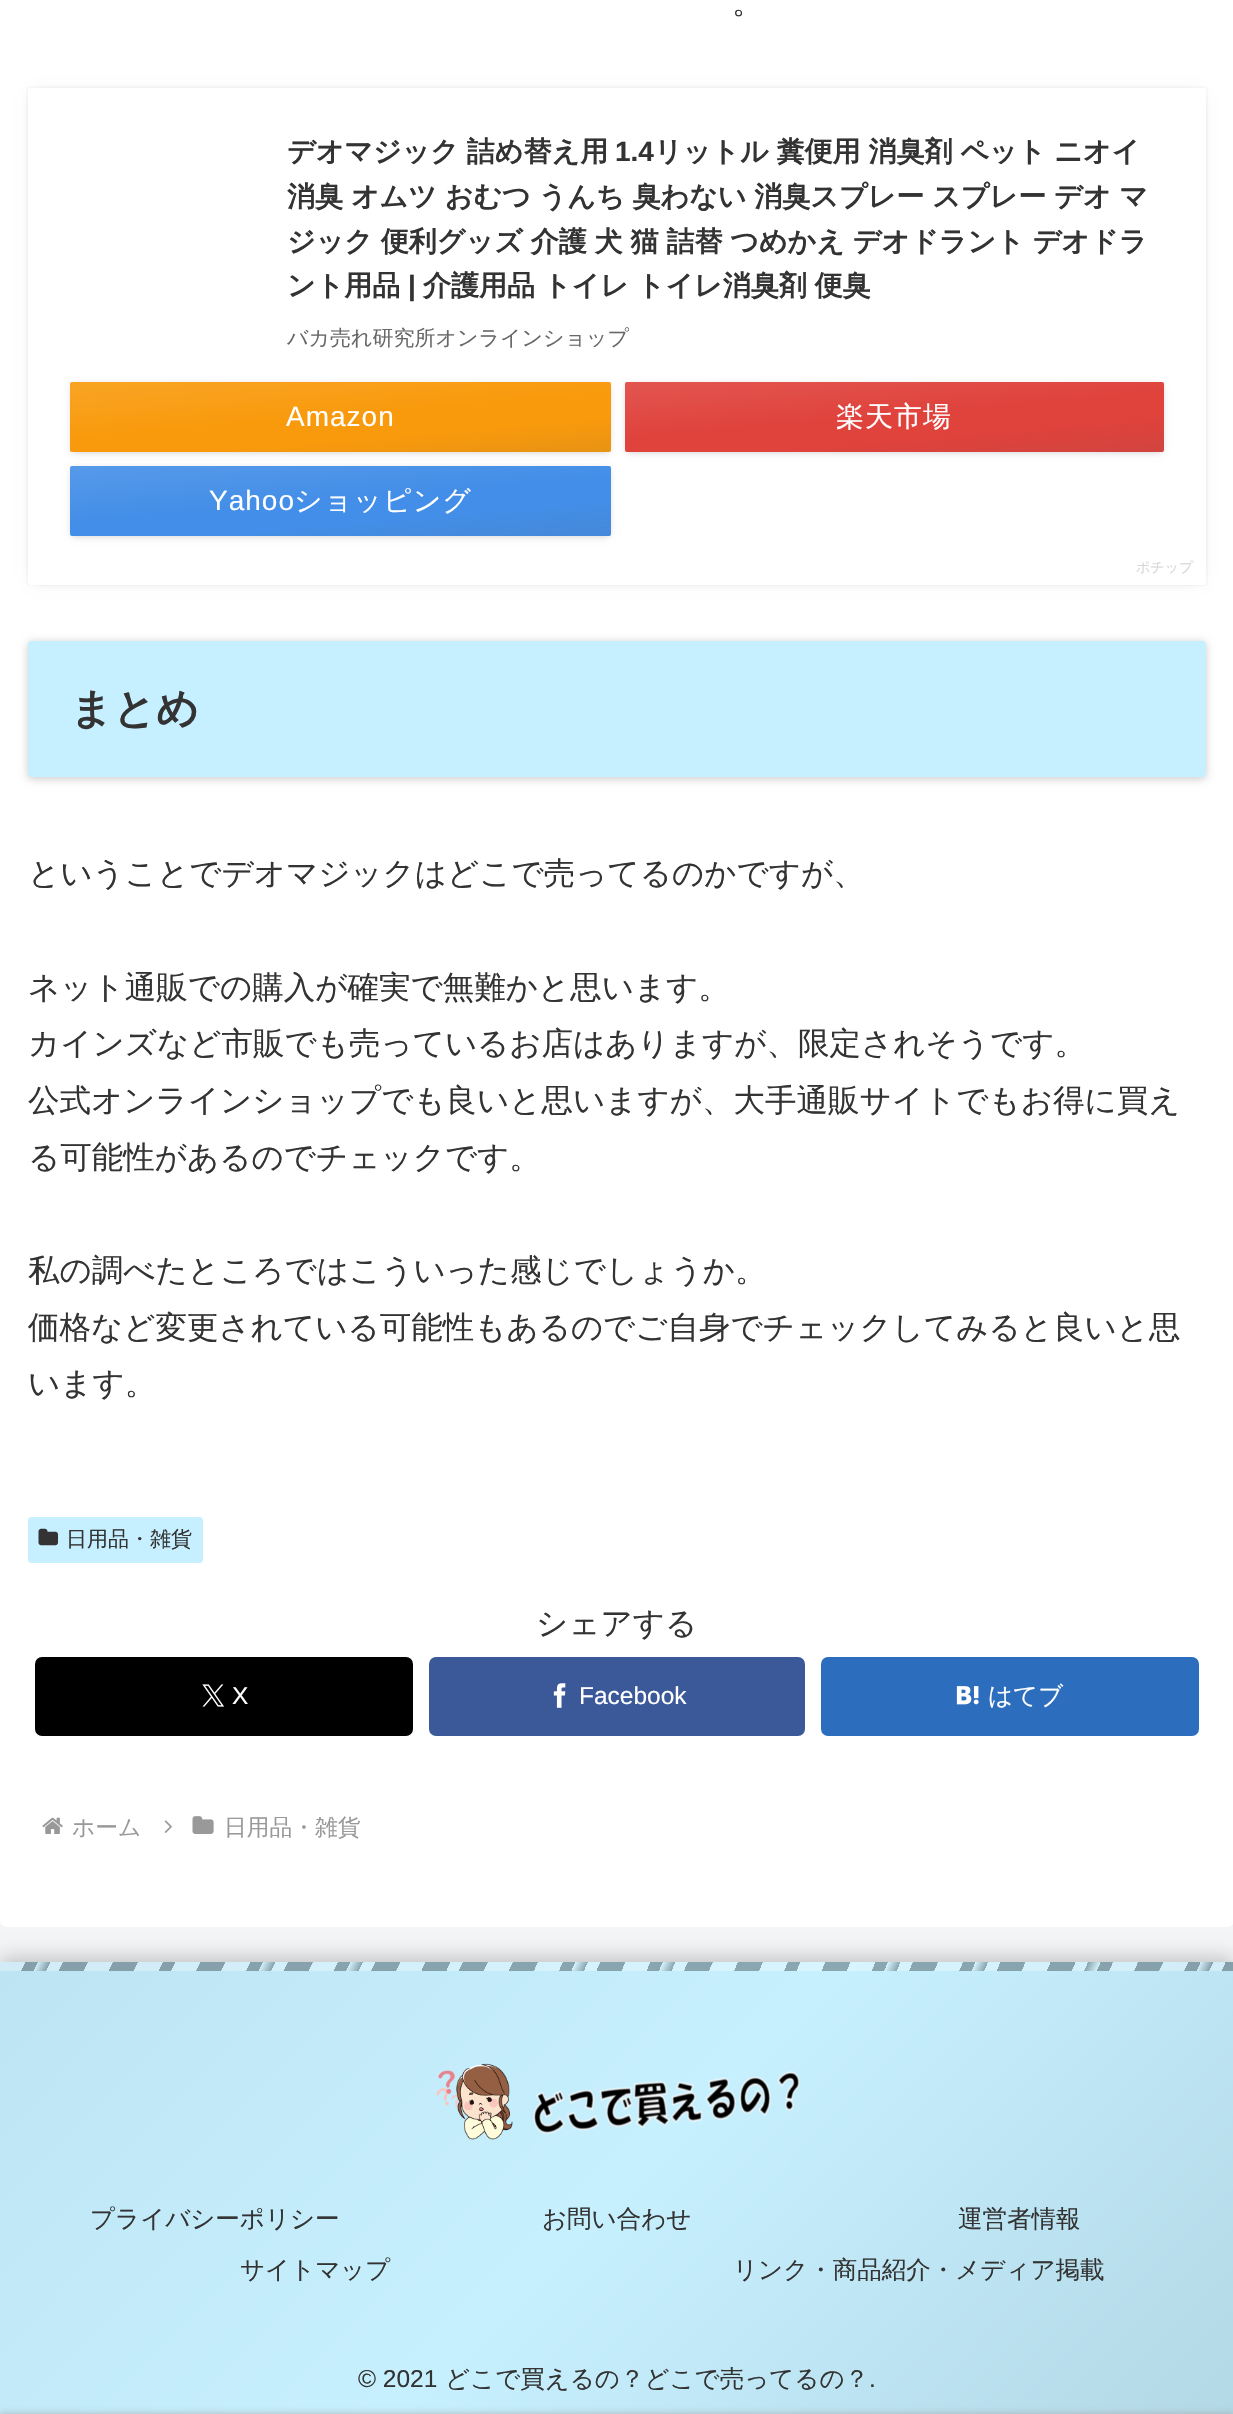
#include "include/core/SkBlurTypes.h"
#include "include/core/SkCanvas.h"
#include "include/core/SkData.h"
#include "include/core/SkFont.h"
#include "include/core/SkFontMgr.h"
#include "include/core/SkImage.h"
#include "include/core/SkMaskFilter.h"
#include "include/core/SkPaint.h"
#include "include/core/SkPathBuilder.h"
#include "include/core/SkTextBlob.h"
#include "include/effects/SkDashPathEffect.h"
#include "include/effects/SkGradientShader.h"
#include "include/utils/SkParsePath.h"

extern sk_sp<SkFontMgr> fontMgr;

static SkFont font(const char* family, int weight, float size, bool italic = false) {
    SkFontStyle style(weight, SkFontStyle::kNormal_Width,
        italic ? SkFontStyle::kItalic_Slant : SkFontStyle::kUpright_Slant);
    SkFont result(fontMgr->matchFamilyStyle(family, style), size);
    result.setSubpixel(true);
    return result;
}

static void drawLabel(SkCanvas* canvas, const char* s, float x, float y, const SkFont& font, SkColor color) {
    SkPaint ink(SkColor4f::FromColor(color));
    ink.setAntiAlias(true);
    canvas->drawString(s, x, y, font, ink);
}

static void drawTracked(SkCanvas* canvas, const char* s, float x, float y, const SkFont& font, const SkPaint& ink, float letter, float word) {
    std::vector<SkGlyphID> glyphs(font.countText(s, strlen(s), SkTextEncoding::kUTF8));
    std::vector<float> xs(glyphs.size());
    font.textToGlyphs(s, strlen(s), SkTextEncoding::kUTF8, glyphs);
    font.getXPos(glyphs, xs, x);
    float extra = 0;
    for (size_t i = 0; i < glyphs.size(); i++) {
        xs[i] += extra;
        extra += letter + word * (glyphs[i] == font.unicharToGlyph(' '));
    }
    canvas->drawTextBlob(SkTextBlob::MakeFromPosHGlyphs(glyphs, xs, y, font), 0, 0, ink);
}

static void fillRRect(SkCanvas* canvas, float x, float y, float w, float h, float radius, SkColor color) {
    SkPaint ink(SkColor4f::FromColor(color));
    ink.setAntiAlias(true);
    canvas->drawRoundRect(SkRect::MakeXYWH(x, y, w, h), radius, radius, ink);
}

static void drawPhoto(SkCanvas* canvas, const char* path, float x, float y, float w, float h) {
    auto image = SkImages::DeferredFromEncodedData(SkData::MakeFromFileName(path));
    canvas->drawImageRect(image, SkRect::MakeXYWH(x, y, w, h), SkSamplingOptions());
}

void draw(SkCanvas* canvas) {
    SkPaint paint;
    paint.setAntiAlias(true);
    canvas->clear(0xFFF4F5F7);
    fillRRect(canvas, 0, -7, 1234, 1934, 7, 0xFFFFFFFF);
    SkFont font1 = font("WenQuanYi Zen Hei", 500, 31.5f);
    drawLabel(canvas, "。", 732, 13, font1, 0xFF333333);
    paint.setStroke(true);
    paint.setStrokeWidth(2);
    paint.setColor(0xFFFAFAFA);
    canvas->drawRoundRect(SkRect::MakeXYWH(27, 87, 1180, 498), 3, 3, paint);
    paint.setStroke(false);
    paint.setColor(0x33000000);
    paint.setMaskFilter(SkMaskFilter::MakeBlur(kNormal_SkBlurStyle, 7));
    canvas->drawRect(SkRect::MakeXYWH(35, 96, 1164, 483), paint);
    paint.setMaskFilter(nullptr);
    fillRRect(canvas, 28, 88, 1178, 497, 2, 0xFFFFFFFF);
    SkFont font2 = font("WenQuanYi Zen Hei", 700, 28);
    paint.setColor(0xFF333333);
    drawTracked(canvas, "デオマジック 詰め替え用", 287, 161, font2, paint, 0, -0.5f);
    SkFont font3 = font("Liberation Sans", 700, 28);
    drawLabel(canvas, "1.4", 615, 161, font3, 0xFF333333);
    drawTracked(canvas, "リットル 糞便用 消臭剤 ペット ニオイ", 654, 161, font2, paint, 0, -0.5f);
    drawTracked(canvas, "消臭 オムツ おむつ うんち 臭わない 消臭スプレー スプレー デオ マ", 287, 206, font2, paint, 0, -0.5f);
    drawTracked(canvas, "ジック 便利グッズ 介護 犬 猫 詰替 つめかえ デオドラント デオドラ", 287, 251, font2, paint, 0, -0.5f);
    drawLabel(canvas, "ント用品", 287, 295, font2, 0xFF333333);
    drawLabel(canvas, "|", 408, 295, font3, 0xFF333333);
    drawTracked(canvas, "介護用品 トイレ トイレ消臭剤 便臭", 423, 295, font2, paint, 0, -0.5f);
    SkFont font4 = font("WenQuanYi Zen Hei", 500, 21);
    drawLabel(canvas, "バカ売れ研究所オンラインショップ", 287, 345, font4, 0xFF686868);
    paint.setColor(0x33000000);
    paint.setMaskFilter(SkMaskFilter::MakeBlur(kNormal_SkBlurStyle, 3.5f));
    canvas->drawRect(SkRect::MakeXYWH(72, 385, 537, 67), paint);
    paint.setMaskFilter(nullptr);
    fillRRect(canvas, 70, 382, 541, 70, 2, 0xFFF99A0C);
    {
        const SkColor colors[] = {0x1AFFFFFF, 0x00FFFFFF, 0x00555555, 0x1A555555};
        const float stops[] = {0, 0.5f, 0.7f, 1};
        const SkPoint ends[] = {{335, 358}, {345, 475}};
        paint.setShader(SkGradientShader::MakeLinear(ends, colors, stops, 4, SkTileMode::kClamp));
        paint.setAlpha(255);
    }
    canvas->drawRoundRect(SkRect::MakeXYWH(70, 382, 541, 70), 2, 2, paint);
    SkFont font5 = font("Liberation Sans", 400, 28);
    paint.setShader(nullptr);
    paint.setColor(0xFFFFFFFF);
    drawTracked(canvas, "Amazon", 286, 426, font5, paint, 1, 0);
    paint.setColor(0x33000000);
    paint.setMaskFilter(SkMaskFilter::MakeBlur(kNormal_SkBlurStyle, 3.5f));
    canvas->drawRect(SkRect::MakeXYWH(627, 385, 535, 67), paint);
    paint.setMaskFilter(nullptr);
    fillRRect(canvas, 625, 382, 539, 70, 2, 0xFFE0423C);
    {
        const SkColor colors[] = {0x1AFFFFFF, 0x00FFFFFF, 0x00555555, 0x1A555555};
        const float stops[] = {0, 0.5f, 0.7f, 1};
        const SkPoint ends[] = {{889, 358}, {899, 475}};
        paint.setShader(SkGradientShader::MakeLinear(ends, colors, stops, 4, SkTileMode::kClamp));
        paint.setAlpha(255);
    }
    canvas->drawRoundRect(SkRect::MakeXYWH(625, 382, 539, 70), 2, 2, paint);
    SkFont font6 = font("WenQuanYi Zen Hei", 500, 28);
    paint.setShader(nullptr);
    paint.setColor(0xFFFFFFFF);
    drawTracked(canvas, "楽天市場", 836, 426, font6, paint, 1, 0);
    paint.setColor(0x33000000);
    paint.setMaskFilter(SkMaskFilter::MakeBlur(kNormal_SkBlurStyle, 3.5f));
    canvas->drawRect(SkRect::MakeXYWH(72, 469, 537, 67), paint);
    paint.setMaskFilter(nullptr);
    fillRRect(canvas, 70, 466, 541, 70, 2, 0xFF438EE8);
    {
        const SkColor colors[] = {0x1AFFFFFF, 0x00FFFFFF, 0x00555555, 0x1A555555};
        const float stops[] = {0, 0.5f, 0.7f, 1};
        const SkPoint ends[] = {{335, 442}, {345, 559}};
        paint.setShader(SkGradientShader::MakeLinear(ends, colors, stops, 4, SkTileMode::kClamp));
        paint.setAlpha(255);
    }
    canvas->drawRoundRect(SkRect::MakeXYWH(70, 466, 541, 70), 2, 2, paint);
    paint.setShader(nullptr);
    paint.setColor(0xFFFFFFFF);
    drawTracked(canvas, "Yahoo", 209, 510, font5, paint, 1, 0);
    drawTracked(canvas, "ショッピング", 294, 510, font6, paint, 1, 0);
    SkFont font7 = font("WenQuanYi Zen Hei", 500, 14);
    drawLabel(canvas, "ポチップ", 1136, 572, font7, 0xFFD7D7D7);
    paint.setColor(0x33000000);
    paint.setMaskFilter(SkMaskFilter::MakeBlur(kNormal_SkBlurStyle, 4.5f));
    canvas->drawRoundRect(SkRect::MakeXYWH(28, 642, 1178, 137), 4, 4, paint);
    paint.setMaskFilter(nullptr);
    fillRRect(canvas, 28, 641, 1178, 136, 4, 0xFFC6EFFF);
    SkFont font8 = font("WenQuanYi Zen Hei", 700, 42);
    drawLabel(canvas, "まとめ", 70, 723, font8, 0xFF333333);
    drawLabel(canvas, "ということでデオマジックはどこで売ってるのかですが、", 28, 884, font1, 0xFF333333);
    drawLabel(canvas, "ネット通販での購入が確実で無難かと思います。", 28, 998, font1, 0xFF333333);
    drawLabel(canvas, "カインズなど市販でも売っているお店はありますが、限定されそうです。", 28, 1054, font1, 0xFF333333);
    drawLabel(canvas, "公式オンラインショップでも良いと思いますが、大手通販サイトでもお得に買え", 28, 1111, font1, 0xFF333333);
    drawLabel(canvas, "る可能性があるのでチェックです。", 28, 1168, font1, 0xFF333333);
    drawLabel(canvas, "私の調べたところではこういった感じでしょうか。", 28, 1281, font1, 0xFF333333);
    drawLabel(canvas, "価格など変更されている可能性もあるのでご自身でチェックしてみると良いと思", 28, 1338, font1, 0xFF333333);
    drawLabel(canvas, "います。", 28, 1394, font1, 0xFF333333);
    fillRRect(canvas, 28, 1517, 175, 46, 4, 0xFFC6EFFF);
    drawPhoto(canvas, "assets/img1.png", 38, 1528, 20, 18);
    drawLabel(canvas, "日用品・雑貨", 66, 1546, font4, 0xFF333333);
    drawLabel(canvas, "シェアする", 536, 1634, font1, 0xFF333333);
    fillRRect(canvas, 35, 1657, 378, 79, 7, 0xFF000000);
    drawPhoto(canvas, "assets/img2.png", 202, 1684, 22, 23);
    SkFont font9 = font("Liberation Sans", 400, 24.5f);
    drawLabel(canvas, "X", 232, 1704, font9, 0xFFFFFFFF);
    fillRRect(canvas, 429, 1657, 376, 79, 7, 0xFF3B5998);
    drawPhoto(canvas, "assets/img3.png", 553, 1683, 13, 25);
    drawLabel(canvas, "Facebook", 579, 1704, font9, 0xFFFFFFFF);
    fillRRect(canvas, 821, 1657, 378, 79, 7, 0xFF2C6EBD);
    drawPhoto(canvas, "assets/img4.png", 956, 1686, 23, 19);
    SkFont font10 = font("WenQuanYi Zen Hei", 500, 24.5f);
    drawLabel(canvas, "はてブ", 988, 1704, font10, 0xFFFFFFFF);
    drawPhoto(canvas, "assets/img5.png", 42, 1817, 21, 17);
    SkFont font11 = font("WenQuanYi Zen Hei", 500, 22.75f);
    drawLabel(canvas, "ホーム", 72, 1835, font11, 0xFF999999);
    drawPhoto(canvas, "assets/img6.png", 164, 1820, 8, 13);
    drawPhoto(canvas, "assets/img7.png", 192, 1816, 22, 18);
    drawLabel(canvas, "日用品・雑貨", 224, 1835, font11, 0xFF999999);
    paint.setMaskFilter(SkMaskFilter::MakeBlur(kNormal_SkBlurStyle, 9));
    canvas->drawRect(SkRect::MakeXYWH(0, 1957, 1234, 453), paint);
    paint.setMaskFilter(nullptr);
    {
        const SkColor colors[] = {0xFFBDE4F3, 0xFFC7F0FF, 0xFFB3D8E6};
        const float stops[] = {0, 0.5f, 1};
        const SkPoint ends[] = {{195, 1767}, {1039, 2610}};
        paint.setShader(SkGradientShader::MakeLinear(ends, colors, stops, 3, SkTileMode::kClamp));
        paint.setAlpha(255);
    }
    canvas->drawRect(SkRect::MakeXYWH(0, 1962, 1233, 452), paint);
    {
        const SkColor colors[] = {0x4DFFFFFF, 0x4DFFFFFF, 0x4D000000, 0x4D000000, 0x4DFFFFFF, 0x4DFFFFFF, 0x4D000000, 0x4D000000, 0x4DFFFFFF, 0x4DFFFFFF, 0x4D000000, 0x4D000000, 0x4DFFFFFF, 0x4DFFFFFF, 0x4D000000, 0x4D000000, 0x4DFFFFFF, 0x4DFFFFFF, 0x4D000000, 0x4D000000, 0x4DFFFFFF, 0x4DFFFFFF, 0x4D000000, 0x4D000000, 0x4DFFFFFF, 0x4DFFFFFF, 0x4D000000, 0x4D000000, 0x4DFFFFFF, 0x4DFFFFFF, 0x4D000000, 0x4D000000, 0x4DFFFFFF, 0x4DFFFFFF, 0x4D000000, 0x4D000000, 0x4DFFFFFF, 0x4DFFFFFF, 0x4D000000, 0x4D000000, 0x4DFFFFFF, 0x4DFFFFFF, 0x4D000000, 0x4D000000, 0x4DFFFFFF, 0x4DFFFFFF, 0x4D000000, 0x4D000000, 0x4DFFFFFF, 0x4DFFFFFF, 0x4D000000, 0x4D000000, 0x4DFFFFFF, 0x4DFFFFFF, 0x4D000000, 0x4D000000, 0x4DFFFFFF, 0x4DFFFFFF, 0x4D000000, 0x4D000000, 0x4DFFFFFF, 0x4DFFFFFF, 0x4D000000, 0x4D000000, 0x4DFFFFFF, 0x4DFFFFFF, 0x4D000000, 0x4D000000, 0x4DFFFFFF, 0x4DFFFFFF, 0x4D000000, 0x4D000000, 0x4DFFFFFF, 0x4DFFFFFF, 0x4D000000, 0x4D000000, 0x4DFFFFFF, 0x4DFFFFFF, 0x4D000000, 0x4D000000, 0x4DFFFFFF, 0x4DFFFFFF, 0x4D000000, 0x4D000000, 0x4DFFFFFF, 0x4DFFFFFF, 0x4D000000, 0x4D000000, 0x4DFFFFFF, 0x4DFFFFFF, 0x4D000000, 0x4D000000, 0x4DFFFFFF, 0x4DFFFFFF, 0x4D000000, 0x4D000000, 0x4DFFFFFF, 0x4DFFFFFF, 0x4D000000, 0x4D000000, 0x4DFFFFFF, 0x4DFFFFFF, 0x4D000000, 0x4D000000, 0x4DFFFFFF, 0x4DFFFFFF, 0x4D000000, 0x4D000000, 0x4DFFFFFF, 0x4DFFFFFF, 0x4D000000, 0x4D000000, 0x4DFFFFFF, 0x4DFFFFFF, 0x4D000000, 0x4D000000, 0x4DFFFFFF, 0x4DFFFFFF, 0x4D000000, 0x4D000000, 0x4DFFFFFF, 0x4DFFFFFF, 0x4D000000, 0x4D000000, 0x4DFFFFFF, 0x4DFFFFFF, 0x4D000000, 0x4D000000, 0x4DFFFFFF, 0x4DFFFFFF, 0x4D000000, 0x4D000000, 0x4DFFFFFF, 0x4DFFFFFF, 0x4D000000, 0x4D000000, 0x4DFFFFFF, 0x4DFFFFFF, 0x4D000000, 0x4D000000, 0x4DFFFFFF, 0x4DFFFFFF, 0x4D000000, 0x4D000000, 0x4DFFFFFF, 0x4DFFFFFF, 0x4D000000, 0x4D000000, 0x4DFFFFFF, 0x4DFFFFFF, 0x4D000000, 0x4D000000, 0x4DFFFFFF, 0x4DFFFFFF, 0x4D000000, 0x4D000000, 0x4DFFFFFF, 0x4DFFFFFF, 0x4D000000, 0x4D000000, 0x4DFFFFFF, 0x4DFFFFFF, 0x4D000000, 0x4D000000, 0x4DFFFFFF, 0x4DFFFFFF, 0x4D000000, 0x4D000000, 0x4DFFFFFF, 0x4DFFFFFF, 0x4D000000, 0x4D000000, 0x4DFFFFFF, 0x4DFFFFFF, 0x4D000000, 0x4D000000, 0x4DFFFFFF, 0x4DFFFFFF, 0x4D000000, 0x4D000000, 0x4DFFFFFF, 0x4DFFFFFF, 0x4D000000, 0x4D000000, 0x4DFFFFFF, 0x4DFFFFFF, 0x4D000000, 0x4D000000, 0x4DFFFFFF, 0x4DFFFFFF, 0x4D000000, 0x4D000000, 0x4DFFFFFF, 0x4DFFFFFF, 0x4D000000, 0x4D000000, 0x4DFFFFFF, 0x4DFFFFFF, 0x4D000000, 0x4D000000, 0x4DFFFFFF, 0x4DFFFFFF, 0x4D000000, 0x4D000000, 0x4DFFFFFF, 0x4DFFFFFF, 0x4D000000, 0x4D000000, 0x4DFFFFFF, 0x4DFFFFFF, 0x4D000000, 0x4D000000, 0x4DFFFFFF, 0x4DFFFFFF, 0x4D000000, 0x4D000000, 0x4DFFFFFF, 0x4DFFFFFF, 0x4D000000, 0x4D000000, 0x4DFFFFFF, 0x4DFFFFFF, 0x4D000000, 0x4D000000, 0x4DFFFFFF, 0x4DFFFFFF, 0x4D000000, 0x4D000000, 0x4DFFFFFF, 0x4DFFFFFF, 0x4D000000, 0x4D000000, 0x4DFFFFFF, 0x4DFFFFFF, 0x4D000000, 0x4D000000, 0x4DFFFFFF, 0x4DFFFFFF, 0x4D000000, 0x4D000000, 0x4DFFFFFF, 0x4DFFFFFF, 0x4D000000, 0x4D000000, 0x4DFFFFFF, 0x4DFFFFFF, 0x4D000000, 0x4D000000, 0x4DFFFFFF, 0x4DFFFFFF, 0x4D000000, 0x4D000000, 0x4DFFFFFF, 0x4DFFFFFF, 0x4D000000, 0x4D000000, 0x4DFFFFFF, 0x4DFFFFFF, 0x4D000000, 0x4D000000, 0x4DFFFFFF, 0x4DFFFFFF, 0x4D000000, 0x4D000000, 0x4DFFFFFF, 0x4DFFFFFF, 0x4D000000, 0x4D000000, 0x4DFFFFFF, 0x4DFFFFFF, 0x4D000000, 0x4D000000, 0x4DFFFFFF, 0x4DFFFFFF, 0x4D000000, 0x4D000000, 0x4DFFFFFF, 0x4DFFFFFF, 0x4D000000, 0x4D000000, 0x4DFFFFFF, 0x4DFFFFFF, 0x4D000000, 0x4D000000, 0x4DFFFFFF, 0x4DFFFFFF, 0x4D000000, 0x4D000000};
        const float stops[] = {0, 0.01f, 0.01f, 0.01f, 0.01f, 0.02f, 0.02f, 0.03f, 0.03f, 0.03f, 0.04f, 0.04f, 0.04f, 0.05f, 0.05f, 0.06f, 0.06f, 0.06f, 0.06f, 0.07f, 0.07f, 0.08f, 0.08f, 0.08f, 0.08f, 0.09f, 0.09f, 0.1f, 0.1f, 0.1f, 0.1f, 0.11f, 0.11f, 0.12f, 0.12f, 0.12f, 0.12f, 0.13f, 0.13f, 0.14f, 0.14f, 0.15f, 0.15f, 0.15f, 0.15f, 0.16f, 0.16f, 0.17f, 0.17f, 0.17f, 0.17f, 0.18f, 0.18f, 0.19f, 0.19f, 0.19f, 0.19f, 0.2f, 0.2f, 0.21f, 0.21f, 0.21f, 0.22f, 0.22f, 0.22f, 0.23f, 0.23f, 0.24f, 0.24f, 0.24f, 0.24f, 0.25f, 0.25f, 0.26f, 0.26f, 0.26f, 0.26f, 0.27f, 0.27f, 0.28f, 0.28f, 0.28f, 0.29f, 0.29f, 0.29f, 0.3f, 0.3f, 0.31f, 0.31f, 0.31f, 0.31f, 0.32f, 0.32f, 0.33f, 0.33f, 0.33f, 0.33f, 0.34f, 0.34f, 0.35f, 0.35f, 0.35f, 0.35f, 0.36f, 0.36f, 0.37f, 0.37f, 0.38f, 0.37f, 0.38f, 0.38f, 0.39f, 0.39f, 0.4f, 0.4f, 0.4f, 0.4f, 0.41f, 0.41f, 0.42f, 0.42f, 0.42f, 0.42f, 0.43f, 0.43f, 0.44f, 0.44f, 0.44f, 0.44f, 0.45f, 0.45f, 0.46f, 0.46f, 0.46f, 0.47f, 0.47f, 0.47f, 0.48f, 0.48f, 0.49f, 0.49f, 0.49f, 0.49f, 0.5f, 0.5f, 0.51f, 0.51f, 0.51f, 0.51f, 0.52f, 0.52f, 0.53f, 0.53f, 0.53f, 0.54f, 0.54f, 0.54f, 0.55f, 0.55f, 0.56f, 0.56f, 0.56f, 0.56f, 0.57f, 0.57f, 0.58f, 0.58f, 0.58f, 0.58f, 0.59f, 0.59f, 0.6f, 0.6f, 0.6f, 0.6f, 0.61f, 0.61f, 0.62f, 0.62f, 0.62f, 0.62f, 0.63f, 0.63f, 0.64f, 0.64f, 0.65f, 0.65f, 0.65f, 0.65f, 0.66f, 0.66f, 0.67f, 0.67f, 0.67f, 0.67f, 0.68f, 0.68f, 0.69f, 0.69f, 0.69f, 0.69f, 0.7f, 0.7f, 0.71f, 0.71f, 0.71f, 0.72f, 0.72f, 0.72f, 0.73f, 0.73f, 0.74f, 0.74f, 0.74f, 0.74f, 0.75f, 0.75f, 0.76f, 0.76f, 0.76f, 0.76f, 0.77f, 0.77f, 0.78f, 0.78f, 0.78f, 0.79f, 0.79f, 0.79f, 0.8f, 0.8f, 0.81f, 0.81f, 0.81f, 0.81f, 0.82f, 0.82f, 0.83f, 0.83f, 0.83f, 0.83f, 0.84f, 0.84f, 0.85f, 0.85f, 0.85f, 0.85f, 0.86f, 0.86f, 0.87f, 0.87f, 0.87f, 0.88f, 0.88f, 0.88f, 0.89f, 0.89f, 0.9f, 0.9f, 0.9f, 0.9f, 0.91f, 0.91f, 0.92f, 0.92f, 0.92f, 0.92f, 0.93f, 0.93f, 0.94f, 0.94f, 0.94f, 0.94f, 0.95f, 0.95f, 0.96f, 0.96f, 0.96f, 0.97f, 0.97f, 0.97f, 0.98f, 0.98f, 0.99f, 0.99f, 0.99f, 0.99f, 1};
        const SkPoint ends[] = {{109, 1729}, {1136, 2208}};
        paint.setShader(SkGradientShader::MakeLinear(ends, colors, stops, 288, SkTileMode::kClamp));
        paint.setAlpha(255);
    }
    canvas->drawRect(SkRect::MakeXYWH(0, 1962, 1233, 9), paint);
    drawPhoto(canvas, "assets/img8.png", 436, 2063, 364, 77);
    drawLabel(canvas, "プライバシーポリシー", 90, 2227, font10, 0xFF333333);
    drawLabel(canvas, "お問い合わせ", 542, 2227, font10, 0xFF333333);
    drawLabel(canvas, "運営者情報", 958, 2227, font10, 0xFF333333);
    drawLabel(canvas, "サイトマップ", 240, 2278, font10, 0xFF333333);
    drawLabel(canvas, "リンク・商品紹介・メディア掲載", 733, 2278, font10, 0xFF333333);
    drawLabel(canvas, "© 2021", 358, 2387, font9, 0xFF333333);
    drawLabel(canvas, "どこで買えるの？どこで売ってるの？", 445, 2387, font10, 0xFF333333);
    drawLabel(canvas, ".", 869, 2387, font9, 0xFF333333);
    paint.setShader(nullptr);
    paint.setColor(0xFFA9A9A9);
    paint.setMaskFilter(SkMaskFilter::MakeBlur(kNormal_SkBlurStyle, 4.5f));
    canvas->drawRect(SkRect::MakeXYWH(0, 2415, 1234, 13), paint);
    paint.setMaskFilter(nullptr);
}
